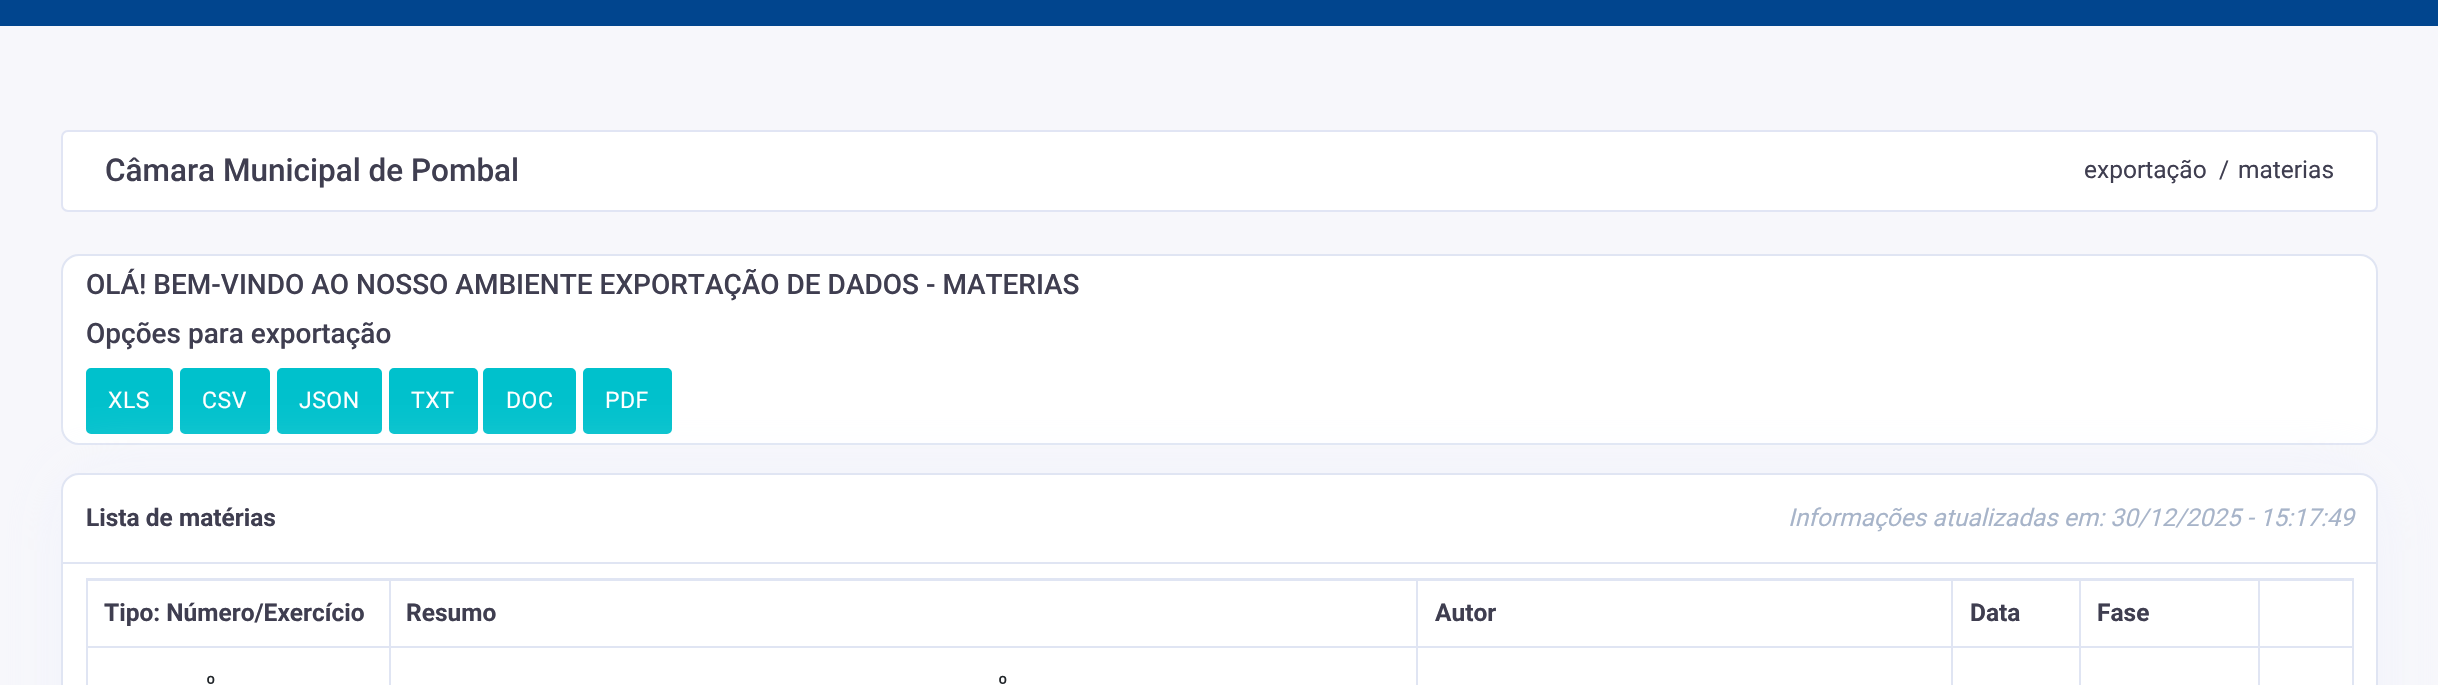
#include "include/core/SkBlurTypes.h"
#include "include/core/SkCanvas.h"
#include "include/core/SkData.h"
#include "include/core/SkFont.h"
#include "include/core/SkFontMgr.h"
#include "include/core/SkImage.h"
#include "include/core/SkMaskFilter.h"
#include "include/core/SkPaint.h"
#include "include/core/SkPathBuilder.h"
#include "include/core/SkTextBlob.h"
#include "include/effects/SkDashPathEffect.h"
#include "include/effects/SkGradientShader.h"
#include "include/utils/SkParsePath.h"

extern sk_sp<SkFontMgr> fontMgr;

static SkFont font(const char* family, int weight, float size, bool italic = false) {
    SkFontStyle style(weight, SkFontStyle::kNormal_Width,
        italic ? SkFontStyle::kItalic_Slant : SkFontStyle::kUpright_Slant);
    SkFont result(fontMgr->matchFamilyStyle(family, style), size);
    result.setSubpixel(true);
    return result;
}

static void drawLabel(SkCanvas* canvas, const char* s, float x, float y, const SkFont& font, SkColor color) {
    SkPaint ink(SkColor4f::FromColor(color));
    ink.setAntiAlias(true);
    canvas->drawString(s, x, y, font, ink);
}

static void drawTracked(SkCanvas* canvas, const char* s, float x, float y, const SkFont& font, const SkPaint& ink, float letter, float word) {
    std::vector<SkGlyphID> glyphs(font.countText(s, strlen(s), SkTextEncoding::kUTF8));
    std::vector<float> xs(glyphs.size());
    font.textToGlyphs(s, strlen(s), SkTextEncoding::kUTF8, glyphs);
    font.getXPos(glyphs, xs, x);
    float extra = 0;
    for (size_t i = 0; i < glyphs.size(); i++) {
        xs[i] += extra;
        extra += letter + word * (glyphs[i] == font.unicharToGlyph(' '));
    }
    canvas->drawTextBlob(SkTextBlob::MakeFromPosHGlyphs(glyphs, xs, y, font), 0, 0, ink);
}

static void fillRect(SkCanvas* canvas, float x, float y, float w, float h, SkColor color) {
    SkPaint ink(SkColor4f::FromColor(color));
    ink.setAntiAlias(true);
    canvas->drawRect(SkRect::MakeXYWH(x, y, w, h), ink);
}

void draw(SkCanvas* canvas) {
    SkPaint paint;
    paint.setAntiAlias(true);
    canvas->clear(0xFFF7F7FB);
    fillRect(canvas, 0, 0, 2438, 26, 0xFF01458E);
    paint.setColor(0xFFFFFFFF);
    canvas->drawRoundRect(SkRect::MakeXYWH(62, 131, 2315, 80), 6, 6, paint);
    paint.setStroke(true);
    paint.setStrokeWidth(2);
    paint.setColor(0xFFE1E5F4);
    canvas->drawRoundRect(SkRect::MakeXYWH(62, 131, 2315, 80), 6, 6, paint);
    SkFont font1 = font("Roboto", 500, 31.5f);
    drawLabel(canvas, "Câmara Municipal de Pombal", 105, 181, font1, 0xFF3F3E50);
    SkFont font2 = font("Roboto", 400, 24.5f);
    drawLabel(canvas, "exportação", 2084, 178, font2, 0xFF3F3E50);
    drawLabel(canvas, "/", 2219, 178, font2, 0xFF3F3E50);
    drawLabel(canvas, "materias", 2238, 178, font2, 0xFF3F3E50);
    paint.setStroke(false);
    paint.setColor(0xFFFFFFFF);
    canvas->drawRoundRect(SkRect::MakeXYWH(62, 255, 2315, 189), 17, 17, paint);
    paint.setStroke(true);
    paint.setColor(0xFFE0E5F3);
    canvas->drawRoundRect(SkRect::MakeXYWH(62, 255, 2315, 189), 17, 17, paint);
    SkFont font3 = font("Roboto", 500, 28);
    drawLabel(canvas, "OLÁ! BEM-VINDO AO NOSSO AMBIENTE EXPORTAÇÃO DE DADOS - MATERIAS", 86, 294, font3, 0xFF3F3E50);
    drawLabel(canvas, "Opções para exportação", 86, 343, font3, 0xFF3F3E50);
    paint.setStroke(false);
    paint.setColor(0xFF00C1CC);
    canvas->drawRoundRect(SkRect::MakeXYWH(87, 369, 85, 64), 4, 4, paint);
    paint.setStroke(true);
    canvas->drawRoundRect(SkRect::MakeXYWH(87, 369, 85, 64), 4, 4, paint);
    SkFont font4 = font("Roboto", 400, 23);
    paint.setStroke(false);
    paint.setColor(0xFFFFFFFF);
    drawTracked(canvas, "XLS", 108, 408, font4, paint, 0.5f, 0);
    paint.setColor(0xFF00C1CC);
    canvas->drawRoundRect(SkRect::MakeXYWH(181, 369, 88, 64), 4, 4, paint);
    paint.setStroke(true);
    canvas->drawRoundRect(SkRect::MakeXYWH(181, 369, 88, 64), 4, 4, paint);
    paint.setStroke(false);
    paint.setColor(0xFFFFFFFF);
    drawTracked(canvas, "CSV", 202, 408, font4, paint, 0.5f, 0);
    paint.setColor(0xFF00C1CC);
    canvas->drawRoundRect(SkRect::MakeXYWH(278, 369, 103, 64), 4, 4, paint);
    paint.setStroke(true);
    canvas->drawRoundRect(SkRect::MakeXYWH(278, 369, 103, 64), 4, 4, paint);
    paint.setStroke(false);
    paint.setColor(0xFFFFFFFF);
    drawTracked(canvas, "JSON", 299, 408, font4, paint, 0.5f, 0);
    paint.setColor(0xFF00C1CC);
    canvas->drawRoundRect(SkRect::MakeXYWH(390, 369, 87, 64), 4, 4, paint);
    paint.setStroke(true);
    canvas->drawRoundRect(SkRect::MakeXYWH(390, 369, 87, 64), 4, 4, paint);
    paint.setStroke(false);
    paint.setColor(0xFFFFFFFF);
    drawTracked(canvas, "TXT", 411, 408, font4, paint, 0.5f, 0);
    paint.setColor(0xFF00C1CC);
    canvas->drawRoundRect(SkRect::MakeXYWH(484, 369, 91, 64), 4, 4, paint);
    paint.setStroke(true);
    canvas->drawRoundRect(SkRect::MakeXYWH(484, 369, 91, 64), 4, 4, paint);
    paint.setStroke(false);
    paint.setColor(0xFFFFFFFF);
    drawTracked(canvas, "DOC", 506, 408, font4, paint, 0.5f, 0);
    paint.setColor(0xFF00C1CC);
    canvas->drawRoundRect(SkRect::MakeXYWH(584, 369, 87, 64), 4, 4, paint);
    paint.setStroke(true);
    canvas->drawRoundRect(SkRect::MakeXYWH(584, 369, 87, 64), 4, 4, paint);
    paint.setStroke(false);
    paint.setColor(0xFFFFFFFF);
    drawTracked(canvas, "PDF", 605, 408, font4, paint, 0.5f, 0);
    paint.setColor(0x80EAEEF9);
    paint.setMaskFilter(SkMaskFilter::MakeBlur(kNormal_SkBlurStyle, 35));
    canvas->drawRoundRect(SkRect::MakeXYWH(61, 473, 2317, 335), 18, 18, paint);
    paint.setMaskFilter(nullptr);
    paint.setColor(0xFFFFFFFF);
    canvas->drawRoundRect(SkRect::MakeXYWH(62, 474, 2315, 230), 17, 17, paint);
    paint.setStroke(true);
    paint.setColor(0xFFE0E5F3);
    canvas->drawRoundRect(SkRect::MakeXYWH(62, 474, 2315, 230), 17, 17, paint);
    fillRect(canvas, 63, 562, 2314, 2, 0xFFE0E5F3);
    SkFont font5 = font("Roboto", 700, 24.5f);
    drawLabel(canvas, "Lista de matérias", 86, 526, font5, 0xFF3F3E50);
    SkFont font6 = font("Roboto", 400, 24.5f, true);
    drawLabel(canvas, "Informações atualizadas em: 30/12/2025 - 15:17:49", 1788, 526, font6, 0xFFA7B4C9);
    fillRect(canvas, 86, 578, 2268, 3, 0xFFE0E5F3);
    fillRect(canvas, 2352, 579, 2, 106, 0xFFE0E5F3);
    fillRect(canvas, 86, 579, 2, 106, 0xFFE0E5F3);
    drawLabel(canvas, "Tipo: Número/Exercício", 104, 621, font5, 0xFF3F3E50);
    fillRect(canvas, 2258, 646, 96, 2, 0xFFE0E5F3);
    fillRect(canvas, 2258, 646, 2, 39, 0xFFE0E5F3);
    fillRect(canvas, 2079, 646, 180, 2, 0xFFE0E5F3);
    fillRect(canvas, 2079, 646, 2, 39, 0xFFE0E5F3);
    fillRect(canvas, 1951, 646, 130, 2, 0xFFE0E5F3);
    fillRect(canvas, 1951, 646, 2, 39, 0xFFE0E5F3);
    fillRect(canvas, 1416, 646, 537, 2, 0xFFE0E5F3);
    fillRect(canvas, 1416, 646, 2, 39, 0xFFE0E5F3);
    fillRect(canvas, 389, 646, 1029, 2, 0xFFE0E5F3);
    fillRect(canvas, 389, 646, 2, 39, 0xFFE0E5F3);
    fillRect(canvas, 86, 646, 304, 2, 0xFFE0E5F3);
    fillRect(canvas, 389, 579, 2, 69, 0xFFE0E5F3);
    drawLabel(canvas, "Resumo", 406, 621, font5, 0xFF3F3E50);
    fillRect(canvas, 1416, 579, 2, 69, 0xFFE0E5F3);
    drawLabel(canvas, "Autor", 1435, 621, font5, 0xFF3F3E50);
    fillRect(canvas, 1951, 579, 2, 69, 0xFFE0E5F3);
    drawLabel(canvas, "Data", 1970, 621, font5, 0xFF3F3E50);
    fillRect(canvas, 2258, 579, 2, 69, 0xFFE0E5F3);
    fillRect(canvas, 2079, 579, 2, 69, 0xFFE0E5F3);
    drawLabel(canvas, "Fase", 2097, 621, font5, 0xFF3F3E50);
    SkFont font7 = font("Roboto", 400, 21);
    drawLabel(canvas, "º", 206, 691, font7, 0xFF212529);
    drawLabel(canvas, "º", 998, 691, font7, 0xFF212529);
}
